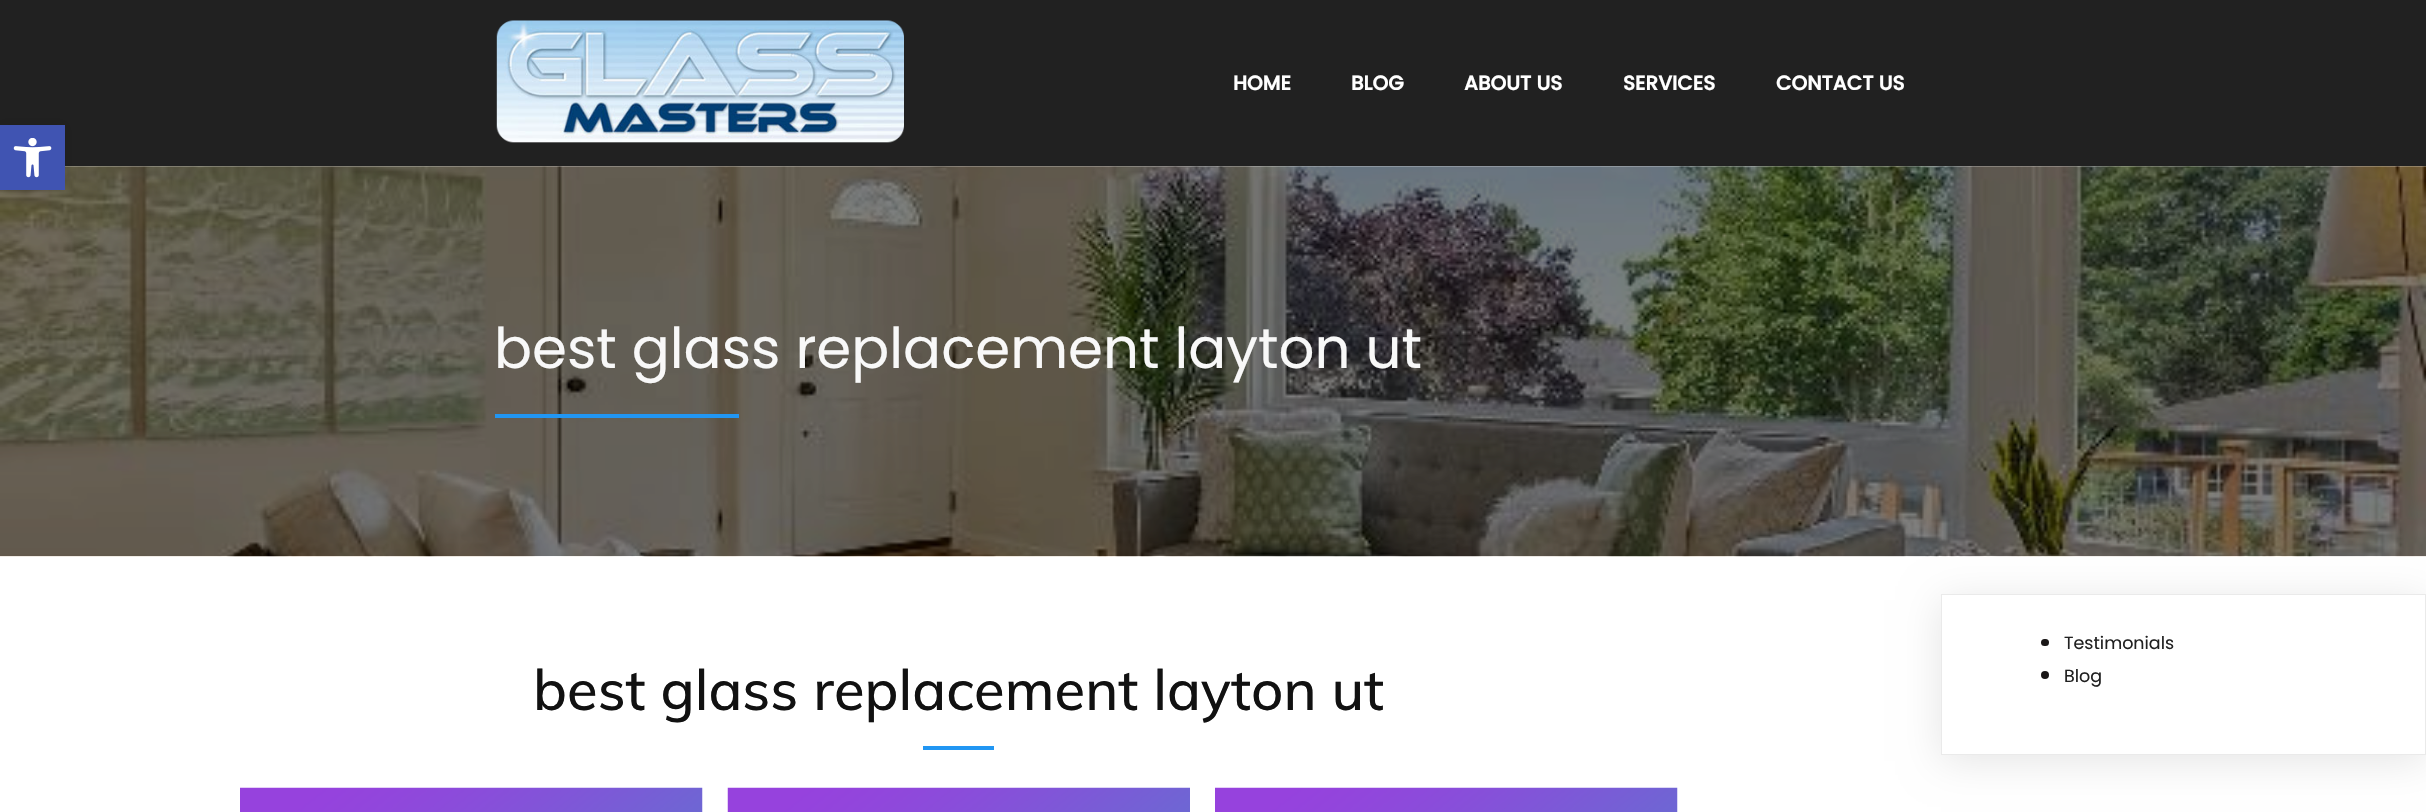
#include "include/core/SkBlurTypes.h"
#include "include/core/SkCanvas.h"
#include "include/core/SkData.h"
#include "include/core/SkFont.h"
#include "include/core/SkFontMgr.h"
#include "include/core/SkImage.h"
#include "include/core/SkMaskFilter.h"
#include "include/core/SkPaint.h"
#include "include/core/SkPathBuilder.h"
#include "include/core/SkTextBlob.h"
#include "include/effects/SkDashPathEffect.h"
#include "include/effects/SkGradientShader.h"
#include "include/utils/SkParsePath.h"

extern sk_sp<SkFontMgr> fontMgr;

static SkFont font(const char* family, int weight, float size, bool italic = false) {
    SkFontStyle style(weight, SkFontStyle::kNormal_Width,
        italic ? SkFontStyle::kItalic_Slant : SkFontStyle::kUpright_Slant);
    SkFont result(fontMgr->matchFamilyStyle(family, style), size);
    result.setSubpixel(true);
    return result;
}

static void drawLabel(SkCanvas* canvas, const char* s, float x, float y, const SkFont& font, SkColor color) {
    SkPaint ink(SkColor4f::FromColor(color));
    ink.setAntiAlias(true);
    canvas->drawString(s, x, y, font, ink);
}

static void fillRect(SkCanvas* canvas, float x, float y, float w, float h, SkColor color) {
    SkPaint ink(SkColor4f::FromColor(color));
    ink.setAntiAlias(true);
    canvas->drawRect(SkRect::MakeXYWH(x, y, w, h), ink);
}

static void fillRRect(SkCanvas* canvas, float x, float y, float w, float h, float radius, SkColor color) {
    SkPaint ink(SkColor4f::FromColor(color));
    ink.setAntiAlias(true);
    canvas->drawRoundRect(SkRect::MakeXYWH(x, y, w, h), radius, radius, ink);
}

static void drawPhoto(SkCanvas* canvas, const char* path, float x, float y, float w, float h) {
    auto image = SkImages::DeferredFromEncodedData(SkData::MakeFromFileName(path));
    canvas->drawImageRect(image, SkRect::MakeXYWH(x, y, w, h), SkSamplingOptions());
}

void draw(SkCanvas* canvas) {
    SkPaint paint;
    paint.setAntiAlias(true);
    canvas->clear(0xFFFFFFFF);
    fillRect(canvas, 0, 0, 2426, 166, 0xFF212121);
    paint.setColor(0x1A000000);
    paint.setMaskFilter(SkMaskFilter::MakeBlur(kNormal_SkBlurStyle, 19));
    canvas->drawRect(SkRect::MakeXYWH(1941, 600, 485, 161), paint);
    paint.setMaskFilter(nullptr);
    drawPhoto(canvas, "assets/img3.png", 0, 166, 2426, 391);
    paint.setMaskFilter(SkMaskFilter::MakeBlur(kNormal_SkBlurStyle, 6));
    canvas->drawRect(SkRect::MakeXYWH(0, 125, 65, 65), paint);
    paint.setMaskFilter(nullptr);
    fillRect(canvas, 0, 125, 65, 65, 0xFF4054B2);
    drawPhoto(canvas, "assets/img1.png", 13, 138, 39, 40);
    drawPhoto(canvas, "assets/img2.png", 496, 20, 408, 123);
    SkFont font1 = font("Poppins", 700, 20);
    drawLabel(canvas, "HOME", 1233, 90, font1, 0xFFFFFFFF);
    drawLabel(canvas, "BLOG", 1351, 90, font1, 0xFFFFFFFF);
    drawLabel(canvas, "ABOUT US", 1464, 90, font1, 0xFFFFFFFF);
    drawLabel(canvas, "SERVICES", 1623, 90, font1, 0xFFFFFFFF);
    drawLabel(canvas, "CONTACT US", 1776, 90, font1, 0xFFFFFFFF);
    SkFont font2 = font("Poppins", 400, 56.25f);
    drawLabel(canvas, "best glass replacement layton ut", 494, 368, font2, 0xFFF8F8F8);
    fillRect(canvas, 495, 414, 244, 4, 0xFF2196F3);
    paint.setColor(0xFFFFFFFF);
    canvas->drawRect(SkRect::MakeXYWH(1941.5f, 594.5f, 484, 160), paint);
    paint.setStroke(true);
    paint.setStrokeWidth(1);
    paint.setColor(0xFFEAEAEA);
    canvas->drawRect(SkRect::MakeXYWH(1941.5f, 594.5f, 484, 160), paint);
    fillRRect(canvas, 2041, 639, 8, 7, 3.5f, 0xFF191616);
    SkFont font3 = font("Poppins", 400, 17.5f);
    drawLabel(canvas, "Testimonials", 2064, 649, font3, 0xFF212121);
    paint.setStroke(false);
    paint.setColor(0xFF191616);
    canvas->drawCircle(2045, 675, 4, paint);
    drawLabel(canvas, "Blog", 2064, 682, font3, 0xFF212121);
    SkFont font4 = font("Muli", 500, 56.25f);
    drawLabel(canvas, "best glass replacement layton ut", 533, 710, font4, 0xFF111111);
    fillRect(canvas, 923, 746, 71, 4, 0xFF2196F3);
    drawPhoto(canvas, "assets/img4.png", 240, 787, 463, 25);
    drawPhoto(canvas, "assets/img5.png", 727, 787, 463, 25);
    drawPhoto(canvas, "assets/img4.png", 1215, 787, 463, 25);
}
